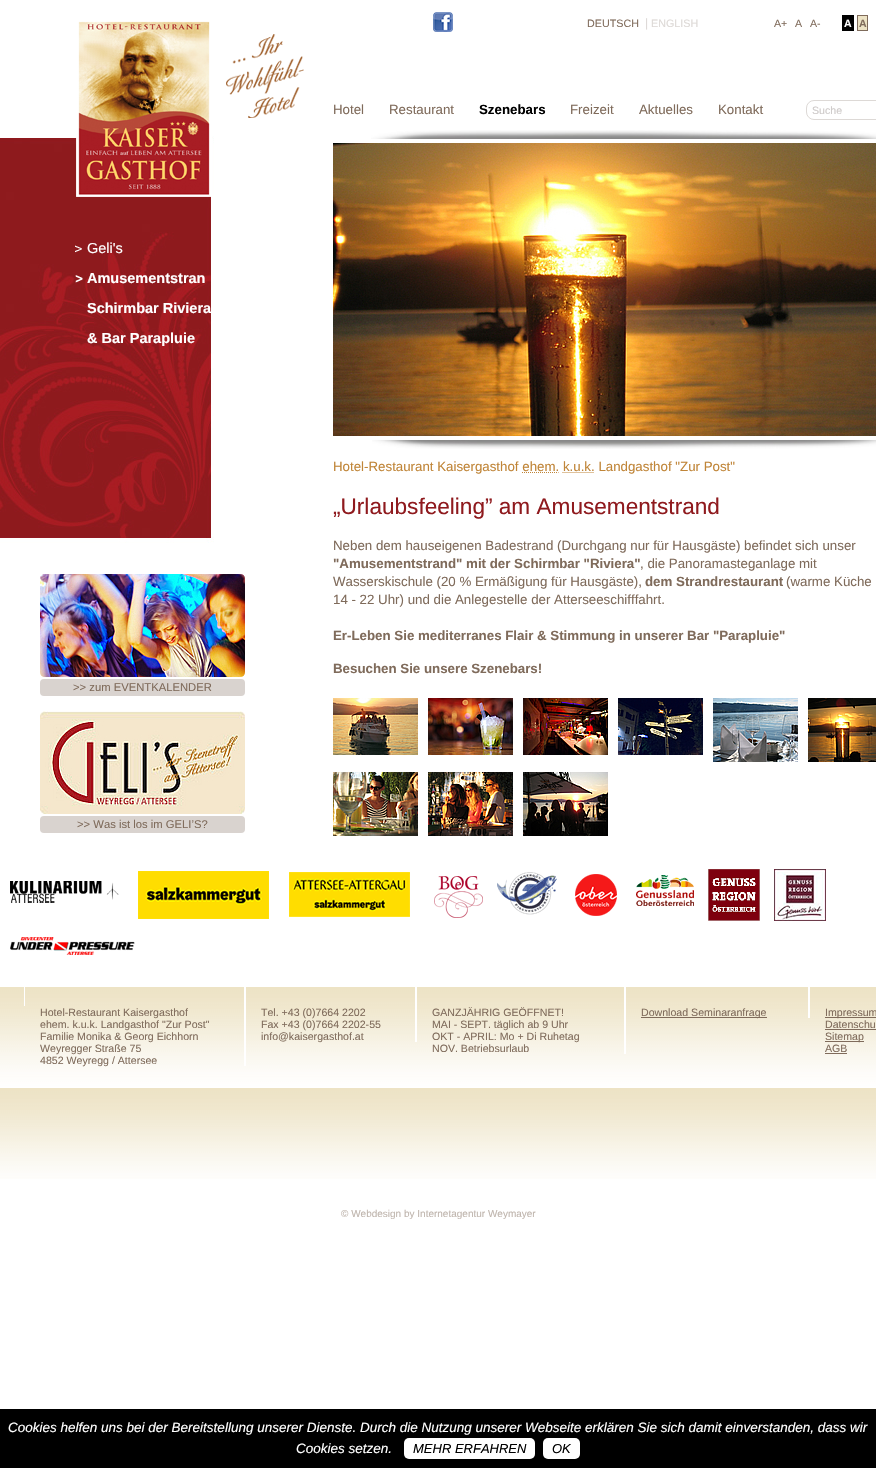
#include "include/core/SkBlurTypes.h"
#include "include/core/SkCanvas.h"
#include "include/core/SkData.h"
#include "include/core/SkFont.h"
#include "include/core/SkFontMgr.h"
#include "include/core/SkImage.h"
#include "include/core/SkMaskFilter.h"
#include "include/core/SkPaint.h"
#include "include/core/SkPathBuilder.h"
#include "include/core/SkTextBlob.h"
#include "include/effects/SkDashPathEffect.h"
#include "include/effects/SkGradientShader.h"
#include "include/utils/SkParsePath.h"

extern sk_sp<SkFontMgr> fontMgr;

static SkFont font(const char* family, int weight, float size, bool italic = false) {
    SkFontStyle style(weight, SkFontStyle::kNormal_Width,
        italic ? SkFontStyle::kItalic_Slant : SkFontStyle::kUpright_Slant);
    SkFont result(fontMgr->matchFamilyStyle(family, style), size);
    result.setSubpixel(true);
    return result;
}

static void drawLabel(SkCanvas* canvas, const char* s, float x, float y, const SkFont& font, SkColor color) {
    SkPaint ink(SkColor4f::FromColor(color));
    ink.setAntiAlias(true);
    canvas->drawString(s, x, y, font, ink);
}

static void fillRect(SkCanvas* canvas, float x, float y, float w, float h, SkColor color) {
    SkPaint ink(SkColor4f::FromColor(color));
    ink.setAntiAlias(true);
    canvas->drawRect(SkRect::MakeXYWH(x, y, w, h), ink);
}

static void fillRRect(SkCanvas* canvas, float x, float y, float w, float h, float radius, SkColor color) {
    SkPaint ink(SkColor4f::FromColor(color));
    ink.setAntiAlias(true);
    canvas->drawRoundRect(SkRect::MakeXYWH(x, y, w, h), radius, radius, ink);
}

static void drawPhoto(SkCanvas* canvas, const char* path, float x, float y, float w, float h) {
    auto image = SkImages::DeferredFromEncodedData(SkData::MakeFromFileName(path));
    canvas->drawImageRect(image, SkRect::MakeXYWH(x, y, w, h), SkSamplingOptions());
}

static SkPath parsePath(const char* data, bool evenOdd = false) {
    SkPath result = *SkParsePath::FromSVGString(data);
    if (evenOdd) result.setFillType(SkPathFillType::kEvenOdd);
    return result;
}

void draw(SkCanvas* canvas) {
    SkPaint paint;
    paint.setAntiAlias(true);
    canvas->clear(0xFFFFFFFF);
    drawPhoto(canvas, "assets/img1.png", 0, 136, 214, 407);
    drawPhoto(canvas, "assets/img2.png", 76, 21, 228, 176);
    drawPhoto(canvas, "assets/img3.png", 75, 245, 7, 8);
    SkFont font1 = font("Liberation Sans", 400, 14.5f);
    drawLabel(canvas, "Geli's", 87, 253, font1, 0xFFFFFFFF);
    drawPhoto(canvas, "assets/img4.png", 75, 275, 8, 8);
    SkFont font2 = font("Liberation Sans", 700, 14.5f);
    drawLabel(canvas, "Amusementstran", 87, 283, font2, 0xFFFFFFFF);
    drawLabel(canvas, "Schirmbar Riviera", 87, 313, font2, 0xFFFFFFFF);
    drawLabel(canvas, "& Bar Parapluie", 87, 343, font2, 0xFFFFFFFF);
    drawPhoto(canvas, "assets/img5.png", 40, 574, 205, 103);
    fillRRect(canvas, 40, 679, 205, 17, 4, 0xFFD9D3CF);
    SkFont font3 = font("Liberation Sans", 400, 11.25f);
    drawLabel(canvas, ">> zum EVENTKALENDER", 73, 691, font3, 0xFF7F6B5B);
    drawPhoto(canvas, "assets/img6.png", 40, 711, 205, 103);
    fillRRect(canvas, 40, 816, 205, 17, 4, 0xFFD9D3CF);
    drawLabel(canvas, ">> Was ist los im GELI’S?", 77, 828, font3, 0xFF7F6B5B);
    drawPhoto(canvas, "assets/img7.png", 433, 12, 20, 20);
    SkFont font4 = font("Liberation Sans", 400, 10.75f);
    drawLabel(canvas, "DEUTSCH", 587, 27, font4, 0xFF7F6B5B);
    SkFont font5 = font("Liberation Sans", 400, 12);
    drawLabel(canvas, "|", 645, 27, font5, 0xFFDDD9D6);
    drawLabel(canvas, "ENGLISH", 651, 27, font4, 0xFFDDD9D6);
    SkFont font6 = font("Liberation Sans", 400, 10.6f);
    drawLabel(canvas, "A+", 774, 27, font6, 0xFF7F6B5B);
    drawLabel(canvas, "A", 795, 27, font6, 0xFF7F6B5B);
    drawLabel(canvas, "A-", 810, 27, font6, 0xFF7F6B5B);
    fillRect(canvas, 842, 15, 12, 16, 0xFF000000);
    SkFont font7 = font("Liberation Sans", 700, 10.6f);
    drawLabel(canvas, "A", 844, 27, font7, 0xFFFFFFFF);
    paint.setColor(0xFFEDE3C5);
    canvas->drawRect(SkRect::MakeXYWH(857.5f, 15.5f, 10, 15), paint);
    paint.setStroke(true);
    paint.setStrokeWidth(1);
    paint.setColor(0xFF7F6B5B);
    canvas->drawRect(SkRect::MakeXYWH(857.5f, 15.5f, 10, 15), paint);
    drawLabel(canvas, "A", 859, 27, font7, 0xFF7F6B5B);
    SkFont font8 = font("Liberation Sans", 400, 13.3f);
    drawLabel(canvas, "Hotel", 333, 114, font8, 0xFF7F6B5B);
    drawLabel(canvas, "Restaurant", 389, 114, font8, 0xFF7F6B5B);
    SkFont font9 = font("Liberation Sans", 700, 13.3f);
    drawLabel(canvas, "Szenebars", 479, 114, font9, 0xFF000000);
    drawLabel(canvas, "Freizeit", 570, 114, font8, 0xFF7F6B5B);
    drawLabel(canvas, "Aktuelles", 639, 114, font8, 0xFF7F6B5B);
    drawLabel(canvas, "Kontakt", 718, 114, font8, 0xFF7F6B5B);
    paint.setColor(0xFFDDD9D6);
    canvas->drawRoundRect(SkRect::MakeXYWH(806.5f, 100.5f, 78, 19), 7.5f, 7.5f, paint);
    drawLabel(canvas, "Suche", 812, 114, font6, 0xFFCECAC9);
    drawPhoto(canvas, "assets/img8.png", 371, 130, 505, 9);
    drawPhoto(canvas, "assets/img9.png", 333, 143, 543, 293);
    drawPhoto(canvas, "assets/img10.png", 372, 440, 504, 9);
    drawLabel(canvas, "Hotel-Restaurant Kaisergasthof ehem. k.u.k. Landgasthof \"Zur Post\"", 333, 471, font8, 0xFFC08538);
    paint.setColor(0xFFC08538);
    paint.setPathEffect(SkDashPathEffect::Make({{1, 1}}, 0));
    canvas->drawPath(parsePath("M522 472.5H558.5"), paint);
    paint.setPathEffect(nullptr);
    paint.setPathEffect(SkDashPathEffect::Make({{1, 1}}, 0));
    canvas->drawPath(parsePath("M562.5 472.5H594"), paint);
    paint.setPathEffect(nullptr);
    SkFont font10 = font("Liberation Sans", 400, 22.6f);
    drawLabel(canvas, "„Urlaubsfeeling” am Amusementstrand", 333, 514, font10, 0xFF8F1A1E);
    drawLabel(canvas, "Neben dem hauseigenen Badestrand (Durchgang nur für Hausgäste) befindet sich unser", 333, 550, font8, 0xFF7F6B5B);
    drawLabel(canvas, "\"Amusementstrand\" mit der Schirmbar \"Riviera\"", 333, 568, font9, 0xFF7F6B5B);
    drawLabel(canvas, ", die Panoramasteganlage mit", 640, 568, font8, 0xFF7F6B5B);
    drawLabel(canvas, "Wasserskischule (20 % Ermäßigung für Hausgäste),", 333, 586, font8, 0xFF7F6B5B);
    drawLabel(canvas, "dem Strandrestaurant", 645, 586, font9, 0xFF7F6B5B);
    drawLabel(canvas, "(warme Küche", 786, 586, font8, 0xFF7F6B5B);
    drawLabel(canvas, "14 - 22 Uhr) und die Anlegestelle der Atterseeschifffahrt.", 333, 604, font8, 0xFF7F6B5B);
    drawLabel(canvas, "Er-Leben Sie mediterranes Flair & Stimmung in unserer Bar \"Parapluie\"", 333, 640, font9, 0xFF7F6B5B);
    drawLabel(canvas, "Besuchen Sie unsere Szenebars!", 333, 673, font9, 0xFF7F6B5B);
    drawPhoto(canvas, "assets/img11.png", 333, 698, 85, 57);
    drawPhoto(canvas, "assets/img12.png", 428, 698, 85, 57);
    drawPhoto(canvas, "assets/img13.png", 523, 698, 85, 57);
    drawPhoto(canvas, "assets/img14.png", 618, 698, 85, 57);
    drawPhoto(canvas, "assets/img15.png", 713, 698, 85, 64);
    drawPhoto(canvas, "assets/img16.png", 808, 698, 68, 64);
    drawPhoto(canvas, "assets/img17.png", 333, 772, 85, 64);
    drawPhoto(canvas, "assets/img18.png", 428, 772, 85, 64);
    drawPhoto(canvas, "assets/img19.png", 523, 772, 85, 64);
    drawPhoto(canvas, "assets/img20.png", 10, 881, 109, 22);
    drawPhoto(canvas, "assets/img21.png", 138, 871, 131, 48);
    drawPhoto(canvas, "assets/img22.png", 289, 872, 121, 45);
    drawPhoto(canvas, "assets/img23.png", 434, 876, 49, 42);
    drawPhoto(canvas, "assets/img24.png", 497, 872, 60, 43);
    drawPhoto(canvas, "assets/img25.png", 575, 874, 42, 42);
    drawPhoto(canvas, "assets/img26.png", 636, 875, 58, 31);
    drawPhoto(canvas, "assets/img27.png", 708, 869, 52, 52);
    drawPhoto(canvas, "assets/img28.png", 774, 869, 52, 52);
    drawPhoto(canvas, "assets/img29.png", 10, 937, 125, 18);
    drawPhoto(canvas, "assets/img30.png", 0, 987, 876, 192);
    fillRect(canvas, 24, 987, 1, 19, 0xFFFFFFFF);
    fillRect(canvas, 244, 987, 2, 79, 0xFFFFFFFF);
    drawLabel(canvas, "Hotel-Restaurant Kaisergasthof", 40, 1016, font6, 0xFF7F6B5B);
    drawLabel(canvas, "ehem. k.u.k. Landgasthof \"Zur Post\"", 40, 1028, font6, 0xFF7F6B5B);
    drawLabel(canvas, "Familie Monika & Georg Eichhorn", 40, 1040, font6, 0xFF7F6B5B);
    drawLabel(canvas, "Weyregger Straße 75", 40, 1052, font6, 0xFF7F6B5B);
    drawLabel(canvas, "4852 Weyregg / Attersee", 40, 1064, font6, 0xFF7F6B5B);
    fillRect(canvas, 415, 987, 2, 55, 0xFFFFFFFF);
    drawLabel(canvas, "Tel. +43 (0)7664 2202", 261, 1016, font6, 0xFF7F6B5B);
    drawLabel(canvas, "Fax +43 (0)7664 2202-55", 261, 1028, font6, 0xFF7F6B5B);
    drawLabel(canvas, "info@kaisergasthof.at", 261, 1040, font6, 0xFF7F6B5B);
    fillRect(canvas, 624, 987, 2, 67, 0xFFFFFFFF);
    drawLabel(canvas, "GANZJÄHRIG GEÖFFNET!", 432, 1016, font6, 0xFF7F6B5B);
    drawLabel(canvas, "MAI - SEPT. täglich ab 9 Uhr", 432, 1028, font6, 0xFF7F6B5B);
    drawLabel(canvas, "OKT - APRIL: Mo + Di Ruhetag", 432, 1040, font6, 0xFF7F6B5B);
    drawLabel(canvas, "NOV. Betriebsurlaub", 432, 1052, font6, 0xFF7F6B5B);
    fillRect(canvas, 808, 987, 2, 31, 0xFFFFFFFF);
    fillRect(canvas, 641, 1017, 126, 1, 0xFF7F6B5B);
    drawLabel(canvas, "Download Seminaranfrage", 641, 1016, font6, 0xFF7F6B5B);
    fillRect(canvas, 825, 1017, 51, 1, 0xFF7F6B5B);
    drawLabel(canvas, "Impressum", 825, 1016, font6, 0xFF7F6B5B);
    drawLabel(canvas, "Datenschu", 825, 1028, font6, 0xFF7F6B5B);
    fillRect(canvas, 825, 1029, 51, 1, 0xFF7F6B5B);
    fillRect(canvas, 825, 1041, 39, 1, 0xFF7F6B5B);
    drawLabel(canvas, "Sitemap", 825, 1040, font6, 0xFF7F6B5B);
    drawLabel(canvas, "AGB", 825, 1052, font6, 0xFF7F6B5B);
    fillRect(canvas, 825, 1053, 22, 1, 0xFF7F6B5B);
    SkFont font11 = font("Liberation Sans", 400, 10);
    drawLabel(canvas, "© Webdesign by Internetagentur Weymayer", 341, 1217, font11, 0xFFBFB5AD);
    fillRect(canvas, 0, 1409, 876, 59, 0xFF000000);
    SkFont font12 = font("Liberation Sans", 400, 13.5f, true);
    drawLabel(canvas, "Cookies helfen uns bei der Bereitstellung unserer Dienste. Durch die Nutzung unserer Webseite erklären Sie sich damit einverstanden, dass wir", 8, 1432, font12, 0xFFFFFFFF);
    drawLabel(canvas, "Cookies setzen.", 296, 1453, font12, 0xFFFFFFFF);
    fillRRect(canvas, 404, 1438, 131, 21, 5, 0xFFFFFFFF);
    SkFont font13 = font("Liberation Sans", 400, 13, true);
    drawLabel(canvas, "MEHR ERFAHREN", 413, 1453, font13, 0xFF000000);
    fillRRect(canvas, 543, 1438, 37, 21, 5, 0xFFFFFFFF);
    drawLabel(canvas, "OK", 552, 1453, font13, 0xFF000000);
}
